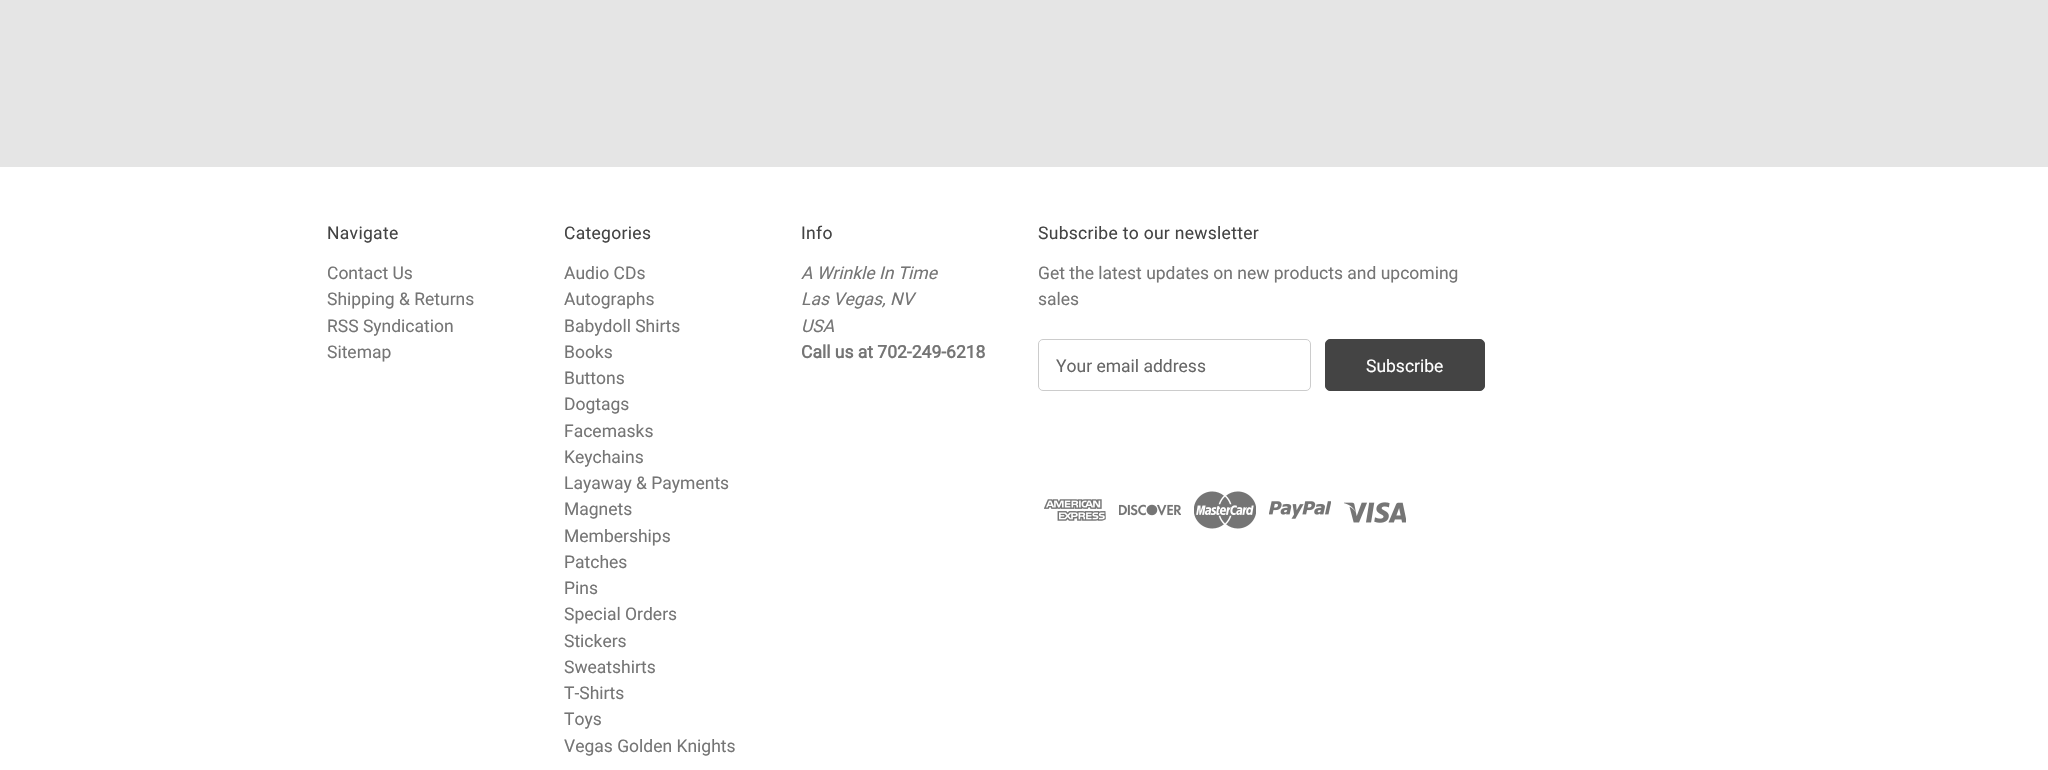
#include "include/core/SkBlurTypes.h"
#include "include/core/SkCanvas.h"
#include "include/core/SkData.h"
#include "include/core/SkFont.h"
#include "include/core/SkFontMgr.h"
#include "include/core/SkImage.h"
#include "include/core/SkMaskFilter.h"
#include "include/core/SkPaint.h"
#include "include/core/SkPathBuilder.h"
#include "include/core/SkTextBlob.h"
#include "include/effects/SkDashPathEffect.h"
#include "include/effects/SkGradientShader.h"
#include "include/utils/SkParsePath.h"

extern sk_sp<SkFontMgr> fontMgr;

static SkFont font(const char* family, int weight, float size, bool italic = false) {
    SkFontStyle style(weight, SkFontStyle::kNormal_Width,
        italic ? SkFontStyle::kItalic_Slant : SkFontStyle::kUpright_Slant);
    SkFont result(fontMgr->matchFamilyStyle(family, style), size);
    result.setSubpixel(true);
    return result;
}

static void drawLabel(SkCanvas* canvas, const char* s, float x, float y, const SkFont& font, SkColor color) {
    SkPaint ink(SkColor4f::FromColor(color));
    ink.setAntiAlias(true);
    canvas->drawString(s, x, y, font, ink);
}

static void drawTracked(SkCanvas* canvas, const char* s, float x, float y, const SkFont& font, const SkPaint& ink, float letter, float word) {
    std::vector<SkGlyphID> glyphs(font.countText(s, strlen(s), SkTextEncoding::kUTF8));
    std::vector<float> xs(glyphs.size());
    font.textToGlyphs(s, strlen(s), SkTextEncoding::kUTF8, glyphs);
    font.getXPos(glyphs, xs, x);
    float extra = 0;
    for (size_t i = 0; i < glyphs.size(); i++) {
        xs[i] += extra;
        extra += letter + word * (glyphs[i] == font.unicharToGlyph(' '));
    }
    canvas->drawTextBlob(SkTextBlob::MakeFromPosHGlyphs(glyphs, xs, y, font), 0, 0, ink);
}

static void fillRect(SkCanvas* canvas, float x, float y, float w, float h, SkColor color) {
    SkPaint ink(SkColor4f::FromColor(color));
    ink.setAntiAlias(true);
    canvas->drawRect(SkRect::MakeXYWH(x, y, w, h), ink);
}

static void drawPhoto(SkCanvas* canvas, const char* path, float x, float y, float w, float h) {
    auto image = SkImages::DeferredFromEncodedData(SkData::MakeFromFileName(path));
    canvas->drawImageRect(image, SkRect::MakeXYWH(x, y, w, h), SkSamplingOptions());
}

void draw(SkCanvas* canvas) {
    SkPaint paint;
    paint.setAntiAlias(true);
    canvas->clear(0xFFE5E5E5);
    fillRect(canvas, 0, 167, 2048, 603, 0xFFFFFFFF);
    SkFont font1 = font("Roboto", 400, 17.5f);
    paint.setColor(0xFF444444);
    drawTracked(canvas, "Navigate", 327, 239, font1, paint, 0.3f, 0);
    drawLabel(canvas, "Contact Us", 327, 279, font1, 0xFF757575);
    drawLabel(canvas, "Shipping & Returns", 327, 305, font1, 0xFF757575);
    drawLabel(canvas, "RSS Syndication", 327, 332, font1, 0xFF757575);
    drawLabel(canvas, "Sitemap", 327, 358, font1, 0xFF757575);
    drawTracked(canvas, "Categories", 564, 239, font1, paint, 0.3f, 0);
    drawLabel(canvas, "Audio CDs", 564, 279, font1, 0xFF757575);
    drawLabel(canvas, "Autographs", 564, 305, font1, 0xFF757575);
    drawLabel(canvas, "Babydoll Shirts", 564, 332, font1, 0xFF757575);
    drawLabel(canvas, "Books", 564, 358, font1, 0xFF757575);
    drawLabel(canvas, "Buttons", 564, 384, font1, 0xFF757575);
    drawLabel(canvas, "Dogtags", 564, 410, font1, 0xFF757575);
    drawLabel(canvas, "Facemasks", 564, 437, font1, 0xFF757575);
    drawLabel(canvas, "Keychains", 564, 463, font1, 0xFF757575);
    drawLabel(canvas, "Layaway & Payments", 564, 489, font1, 0xFF757575);
    drawLabel(canvas, "Magnets", 564, 515, font1, 0xFF757575);
    drawLabel(canvas, "Memberships", 564, 542, font1, 0xFF757575);
    drawLabel(canvas, "Patches", 564, 568, font1, 0xFF757575);
    drawLabel(canvas, "Pins", 564, 594, font1, 0xFF757575);
    drawLabel(canvas, "Special Orders", 564, 620, font1, 0xFF757575);
    drawLabel(canvas, "Stickers", 564, 647, font1, 0xFF757575);
    drawLabel(canvas, "Sweatshirts", 564, 673, font1, 0xFF757575);
    drawLabel(canvas, "T-Shirts", 564, 699, font1, 0xFF757575);
    drawLabel(canvas, "Toys", 564, 725, font1, 0xFF757575);
    drawLabel(canvas, "Vegas Golden Knights", 564, 752, font1, 0xFF757575);
    drawTracked(canvas, "Info", 801, 239, font1, paint, 0.3f, 0);
    SkFont font2 = font("Roboto", 400, 17.5f, true);
    drawLabel(canvas, "A Wrinkle In Time", 801, 279, font2, 0xFF757575);
    drawLabel(canvas, "Las Vegas, NV", 801, 305, font2, 0xFF757575);
    drawLabel(canvas, "USA", 801, 332, font2, 0xFF757575);
    SkFont font3 = font("Roboto", 700, 17.5f);
    drawLabel(canvas, "Call us at 702-249-6218", 801, 358, font3, 0xFF757575);
    drawTracked(canvas, "Subscribe to our newsletter", 1038, 239, font1, paint, 0.3f, 0);
    drawLabel(canvas, "Get the latest updates on new products and upcoming", 1038, 279, font1, 0xFF757575);
    drawLabel(canvas, "sales", 1038, 305, font1, 0xFF757575);
    paint.setStroke(true);
    paint.setStrokeWidth(1);
    paint.setColor(0xFFCCCCCC);
    canvas->drawRoundRect(SkRect::MakeXYWH(1038.5f, 339.5f, 272, 51), 4.5f, 4.5f, paint);
    drawLabel(canvas, "Your email address", 1056, 372, font1, 0xFF666666);
    paint.setStroke(false);
    paint.setColor(0xFF444444);
    canvas->drawRoundRect(SkRect::MakeXYWH(1325.5f, 339.5f, 159, 51), 4.5f, 4.5f, paint);
    paint.setStroke(true);
    canvas->drawRoundRect(SkRect::MakeXYWH(1325.5f, 339.5f, 159, 51), 4.5f, 4.5f, paint);
    drawLabel(canvas, "Subscribe", 1366, 372, font1, 0xFFFFFFFF);
    drawPhoto(canvas, "assets/img1.png", 1044, 499, 62, 22);
    drawPhoto(canvas, "assets/img2.png", 1119, 504, 62, 12);
    drawPhoto(canvas, "assets/img3.png", 1194, 491, 62, 38);
    drawPhoto(canvas, "assets/img4.png", 1269, 501, 62, 18);
    drawPhoto(canvas, "assets/img5.png", 1344, 502, 62, 21);
}
